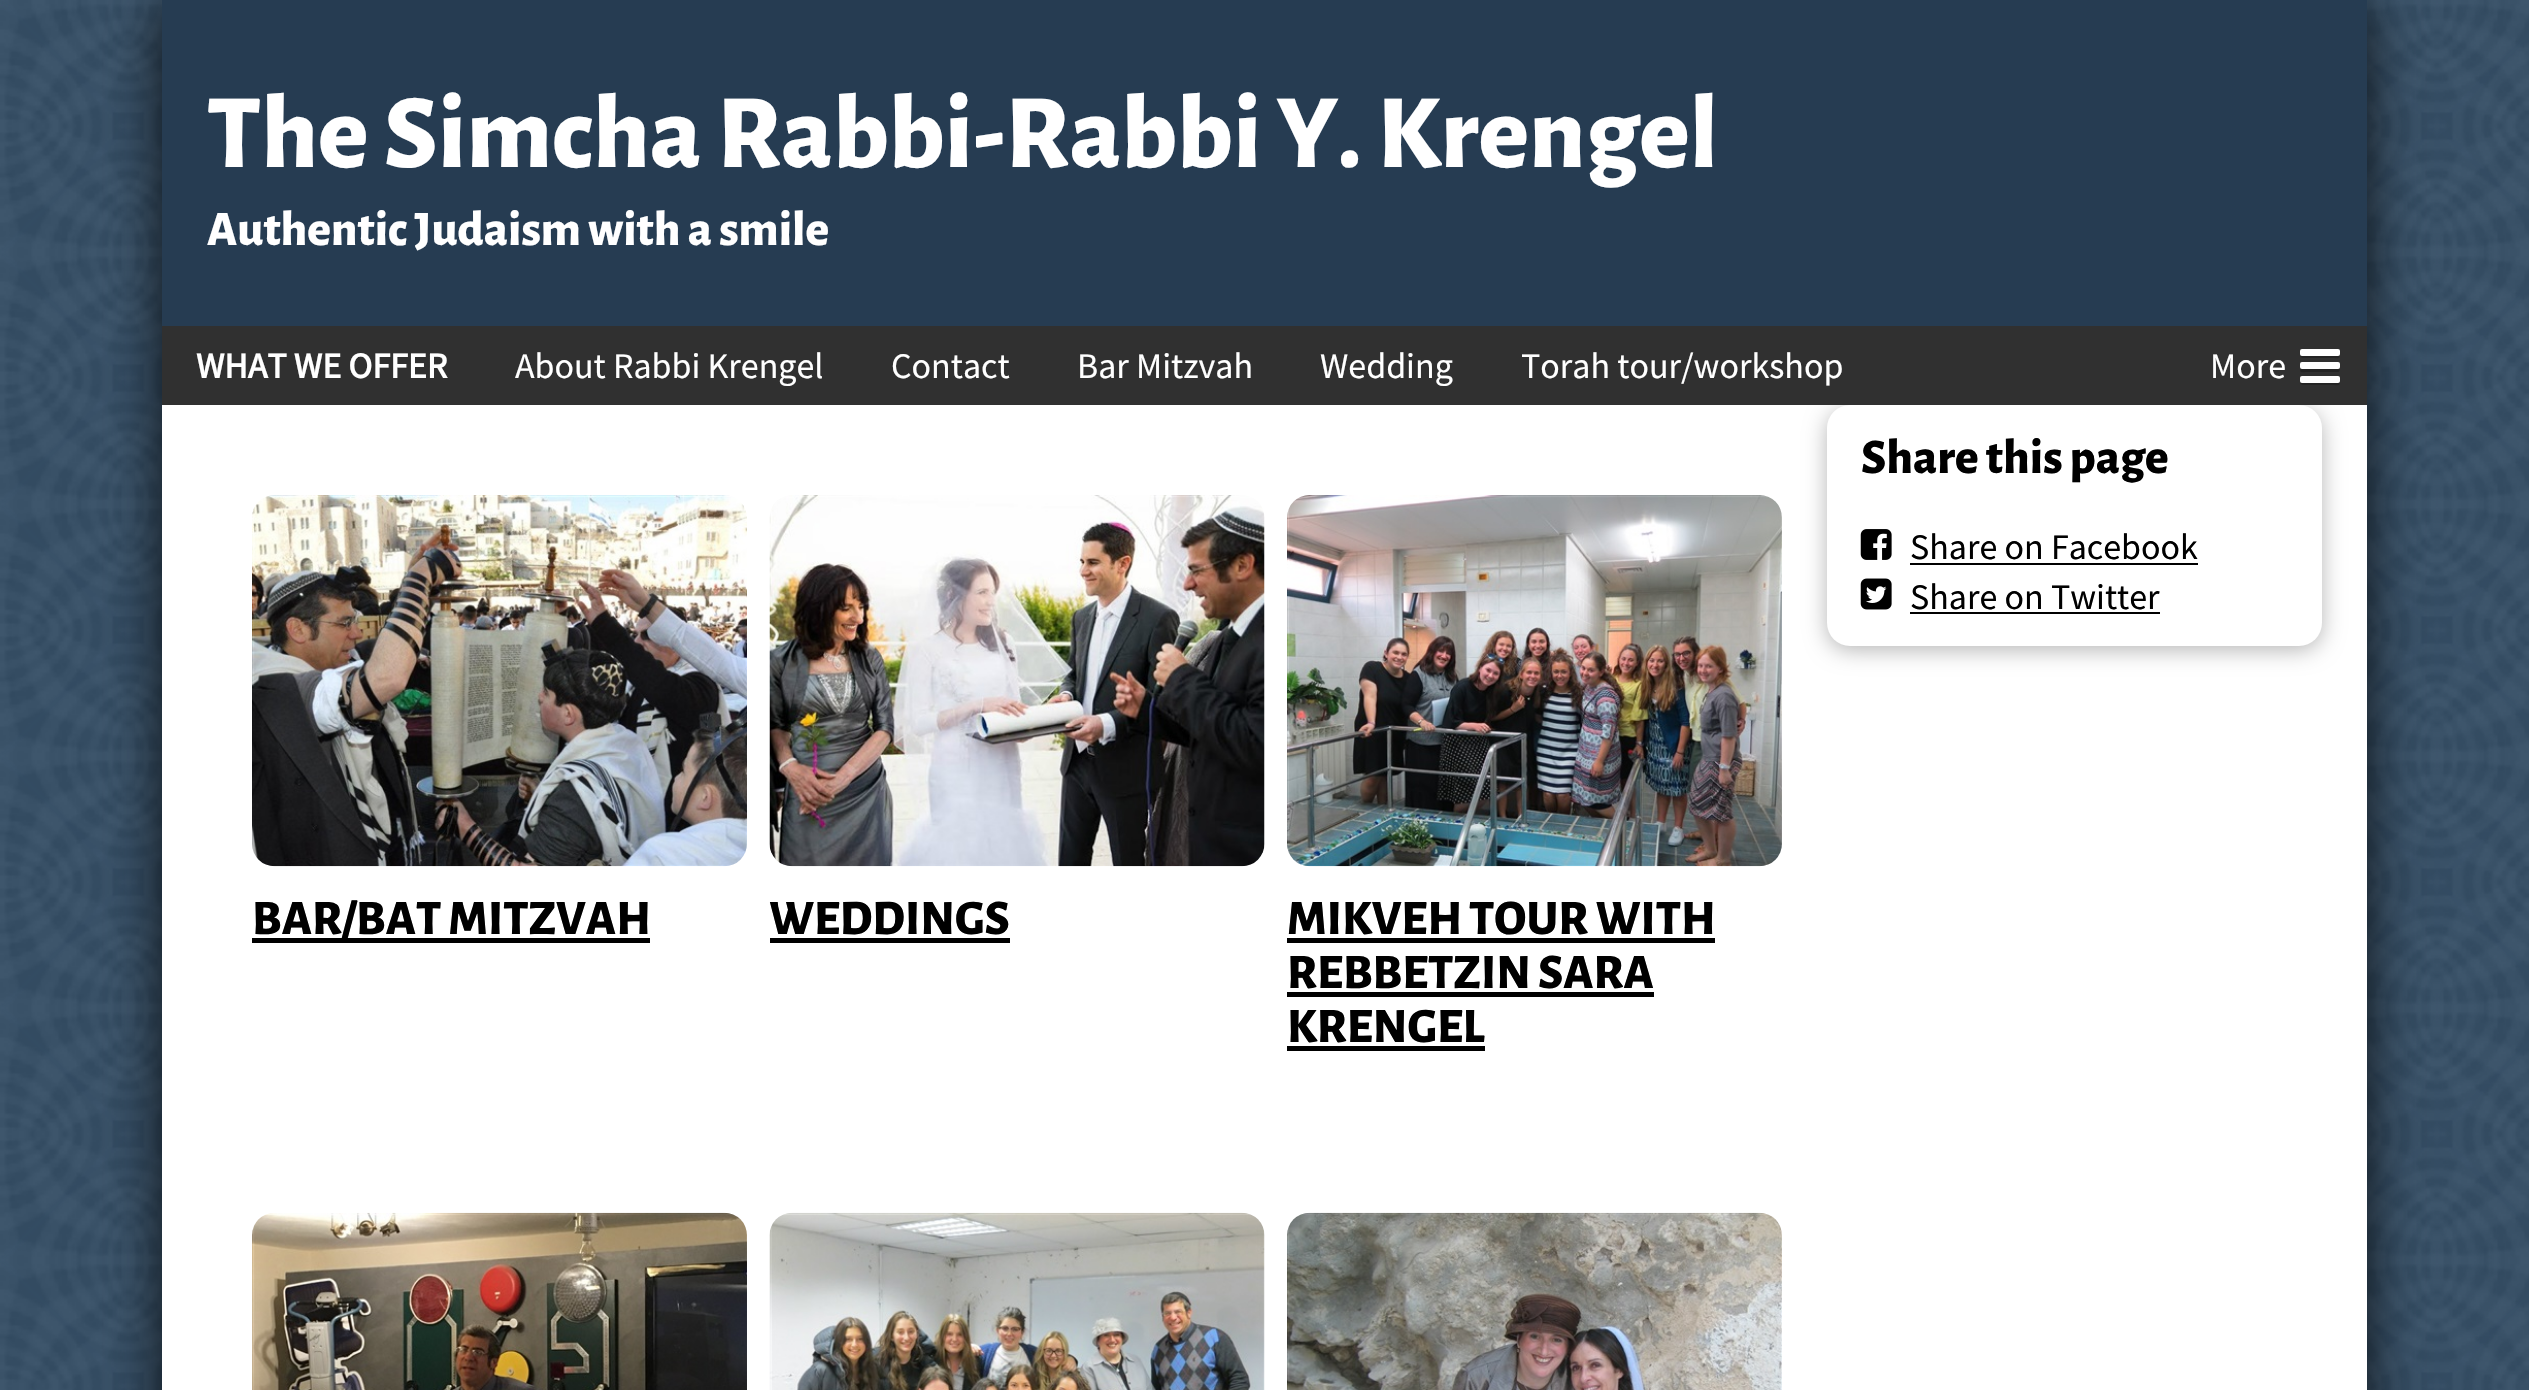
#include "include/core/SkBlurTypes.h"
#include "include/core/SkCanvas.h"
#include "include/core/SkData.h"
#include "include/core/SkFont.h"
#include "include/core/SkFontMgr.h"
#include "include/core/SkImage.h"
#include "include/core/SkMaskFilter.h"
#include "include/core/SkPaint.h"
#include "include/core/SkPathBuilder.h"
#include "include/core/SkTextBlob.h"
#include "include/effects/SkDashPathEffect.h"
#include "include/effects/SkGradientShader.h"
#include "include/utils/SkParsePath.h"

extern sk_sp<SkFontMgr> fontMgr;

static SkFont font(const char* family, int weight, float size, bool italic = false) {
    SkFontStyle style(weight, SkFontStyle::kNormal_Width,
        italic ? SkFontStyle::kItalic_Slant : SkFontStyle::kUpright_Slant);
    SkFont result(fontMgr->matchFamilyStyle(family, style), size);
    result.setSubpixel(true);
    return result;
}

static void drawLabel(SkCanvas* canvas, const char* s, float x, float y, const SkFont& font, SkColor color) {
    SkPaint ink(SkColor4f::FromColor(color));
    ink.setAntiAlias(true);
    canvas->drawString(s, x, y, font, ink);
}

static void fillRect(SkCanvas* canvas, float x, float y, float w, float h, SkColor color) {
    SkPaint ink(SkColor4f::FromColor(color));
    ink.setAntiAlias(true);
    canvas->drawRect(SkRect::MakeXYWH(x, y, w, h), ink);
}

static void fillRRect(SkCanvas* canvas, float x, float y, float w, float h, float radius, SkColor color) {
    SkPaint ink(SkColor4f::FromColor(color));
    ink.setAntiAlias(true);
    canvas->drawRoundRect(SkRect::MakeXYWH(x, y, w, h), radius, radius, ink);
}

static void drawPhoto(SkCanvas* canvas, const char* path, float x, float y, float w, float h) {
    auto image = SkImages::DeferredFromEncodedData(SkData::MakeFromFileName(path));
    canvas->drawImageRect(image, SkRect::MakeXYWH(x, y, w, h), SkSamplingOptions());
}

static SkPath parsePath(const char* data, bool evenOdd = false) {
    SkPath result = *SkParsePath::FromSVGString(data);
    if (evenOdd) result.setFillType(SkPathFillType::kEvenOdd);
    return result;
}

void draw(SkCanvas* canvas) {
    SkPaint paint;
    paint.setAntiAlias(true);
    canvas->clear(0xFF314F6B);
    drawPhoto(canvas, "assets/img1.png", 0, 0, 2529, 1390);
    paint.setColor(0xCC000000);
    paint.setMaskFilter(SkMaskFilter::MakeBlur(kNormal_SkBlurStyle, 27));
    canvas->drawRoundRect(SkRect::MakeXYWH(162, 0, 2205, 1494), 23, 23, paint);
    paint.setMaskFilter(nullptr);
    fillRect(canvas, 162, 405, 2205, 985, 0xFFFFFFFF);
    fillRect(canvas, 162, 0, 2205, 326, 0xFF263C52);
    SkFont font1 = font("Alegreya Sans", 800, 105.75f);
    drawLabel(canvas, "The Simcha Rabbi-Rabbi Y. Krengel", 207, 167, font1, 0xFFFFFFFF);
    SkFont font2 = font("Alegreya Sans", 800, 49.5f);
    drawLabel(canvas, "Authentic Judaism with a smile", 207, 245, font2, 0xFFFFFFFF);
    paint.setColor(0x4A000000);
    paint.setMaskFilter(SkMaskFilter::MakeBlur(kNormal_SkBlurStyle, 11));
    canvas->drawRoundRect(SkRect::MakeXYWH(1827, 410, 495, 240), 23, 23, paint);
    paint.setMaskFilter(nullptr);
    fillRect(canvas, 162, 326, 2205, 79, 0xFF303030);
    SkFont font3 = font("Source Sans Pro", 700, 36);
    drawLabel(canvas, "WHAT WE OFFER", 196, 378, font3, 0xFFFFFFFF);
    SkFont font4 = font("Source Sans Pro", 400, 36);
    drawLabel(canvas, "About Rabbi Krengel", 515, 378, font4, 0xFFFFFFFF);
    drawLabel(canvas, "Contact", 891, 378, font4, 0xFFFFFFFF);
    drawLabel(canvas, "Bar Mitzvah", 1077, 378, font4, 0xFFFFFFFF);
    drawLabel(canvas, "Wedding", 1320, 378, font4, 0xFFFFFFFF);
    drawLabel(canvas, "Torah tour/workshop", 1521, 378, font4, 0xFFFFFFFF);
    drawLabel(canvas, "More", 2210, 378, font4, 0xFFFFFFFF);
    paint.setColor(0xFF242424);
    canvas->drawPath(parsePath("M2300 355C2300 359 2304 358 2308 358H2332C2339 358 2340 360 2340 353C2340 354 2339 356 2338 356H2302Z"), paint);
    fillRRect(canvas, 2300, 349, 40, 7, 2, 0xFFFFFFFF);
    canvas->drawPath(parsePath("M2300 368C2300 374 2302 372 2308 372H2332C2339 372 2340 373 2340 367C2340 368 2339 369 2338 369H2302Z"), paint);
    fillRRect(canvas, 2300, 362, 40, 7, 2, 0xFFFFFFFF);
    canvas->drawPath(parsePath("M2300 382C2300 386 2304 385 2308 385H2332C2339 385 2340 387 2340 380C2340 381 2339 382 2338 382H2302Z"), paint);
    fillRRect(canvas, 2300, 376, 40, 7, 2, 0xFFFFFFFF);
    fillRRect(canvas, 1827, 405, 495, 241, 23, 0xFFFFFFFF);
    drawLabel(canvas, "Share this page", 1861, 473, font2, 0xFF000000);
    drawPhoto(canvas, "assets/img2.png", 1860, 529, 32, 31);
    drawLabel(canvas, "Share on Facebook", 1910, 559, font4, 0xFF000000);
    fillRect(canvas, 1910, 563, 288, 2, 0xFF000000);
    drawPhoto(canvas, "assets/img3.png", 1860, 578, 32, 32);
    drawLabel(canvas, "Share on Twitter", 1910, 609, font4, 0xFF000000);
    fillRect(canvas, 1910, 612, 250, 2, 0xFF000000);
    drawPhoto(canvas, "assets/img4.png", 252, 495, 495, 372);
    fillRect(canvas, 252, 938, 398, 5, 0xFF000000);
    drawLabel(canvas, "BAR/BAT MITZVAH", 252, 934, font2, 0xFF000000);
    drawPhoto(canvas, "assets/img5.png", 769, 495, 496, 372);
    drawLabel(canvas, "WEDDINGS", 769, 934, font2, 0xFF000000);
    fillRect(canvas, 770, 938, 240, 5, 0xFF000000);
    drawPhoto(canvas, "assets/img6.png", 1287, 495, 495, 372);
    drawLabel(canvas, "MIKVEH TOUR WITH", 1287, 934, font2, 0xFF000000);
    fillRect(canvas, 1287, 938, 428, 5, 0xFF000000);
    drawLabel(canvas, "REBBETZIN SARA", 1287, 988, font2, 0xFF000000);
    fillRect(canvas, 1287, 992, 367, 5, 0xFF000000);
    drawLabel(canvas, "KRENGEL", 1287, 1042, font2, 0xFF000000);
    fillRect(canvas, 1287, 1046, 198, 5, 0xFF000000);
    drawPhoto(canvas, "assets/img7.png", 252, 1212, 495, 178);
    drawPhoto(canvas, "assets/img8.png", 769, 1212, 496, 178);
    drawPhoto(canvas, "assets/img9.png", 1287, 1212, 495, 178);
}
